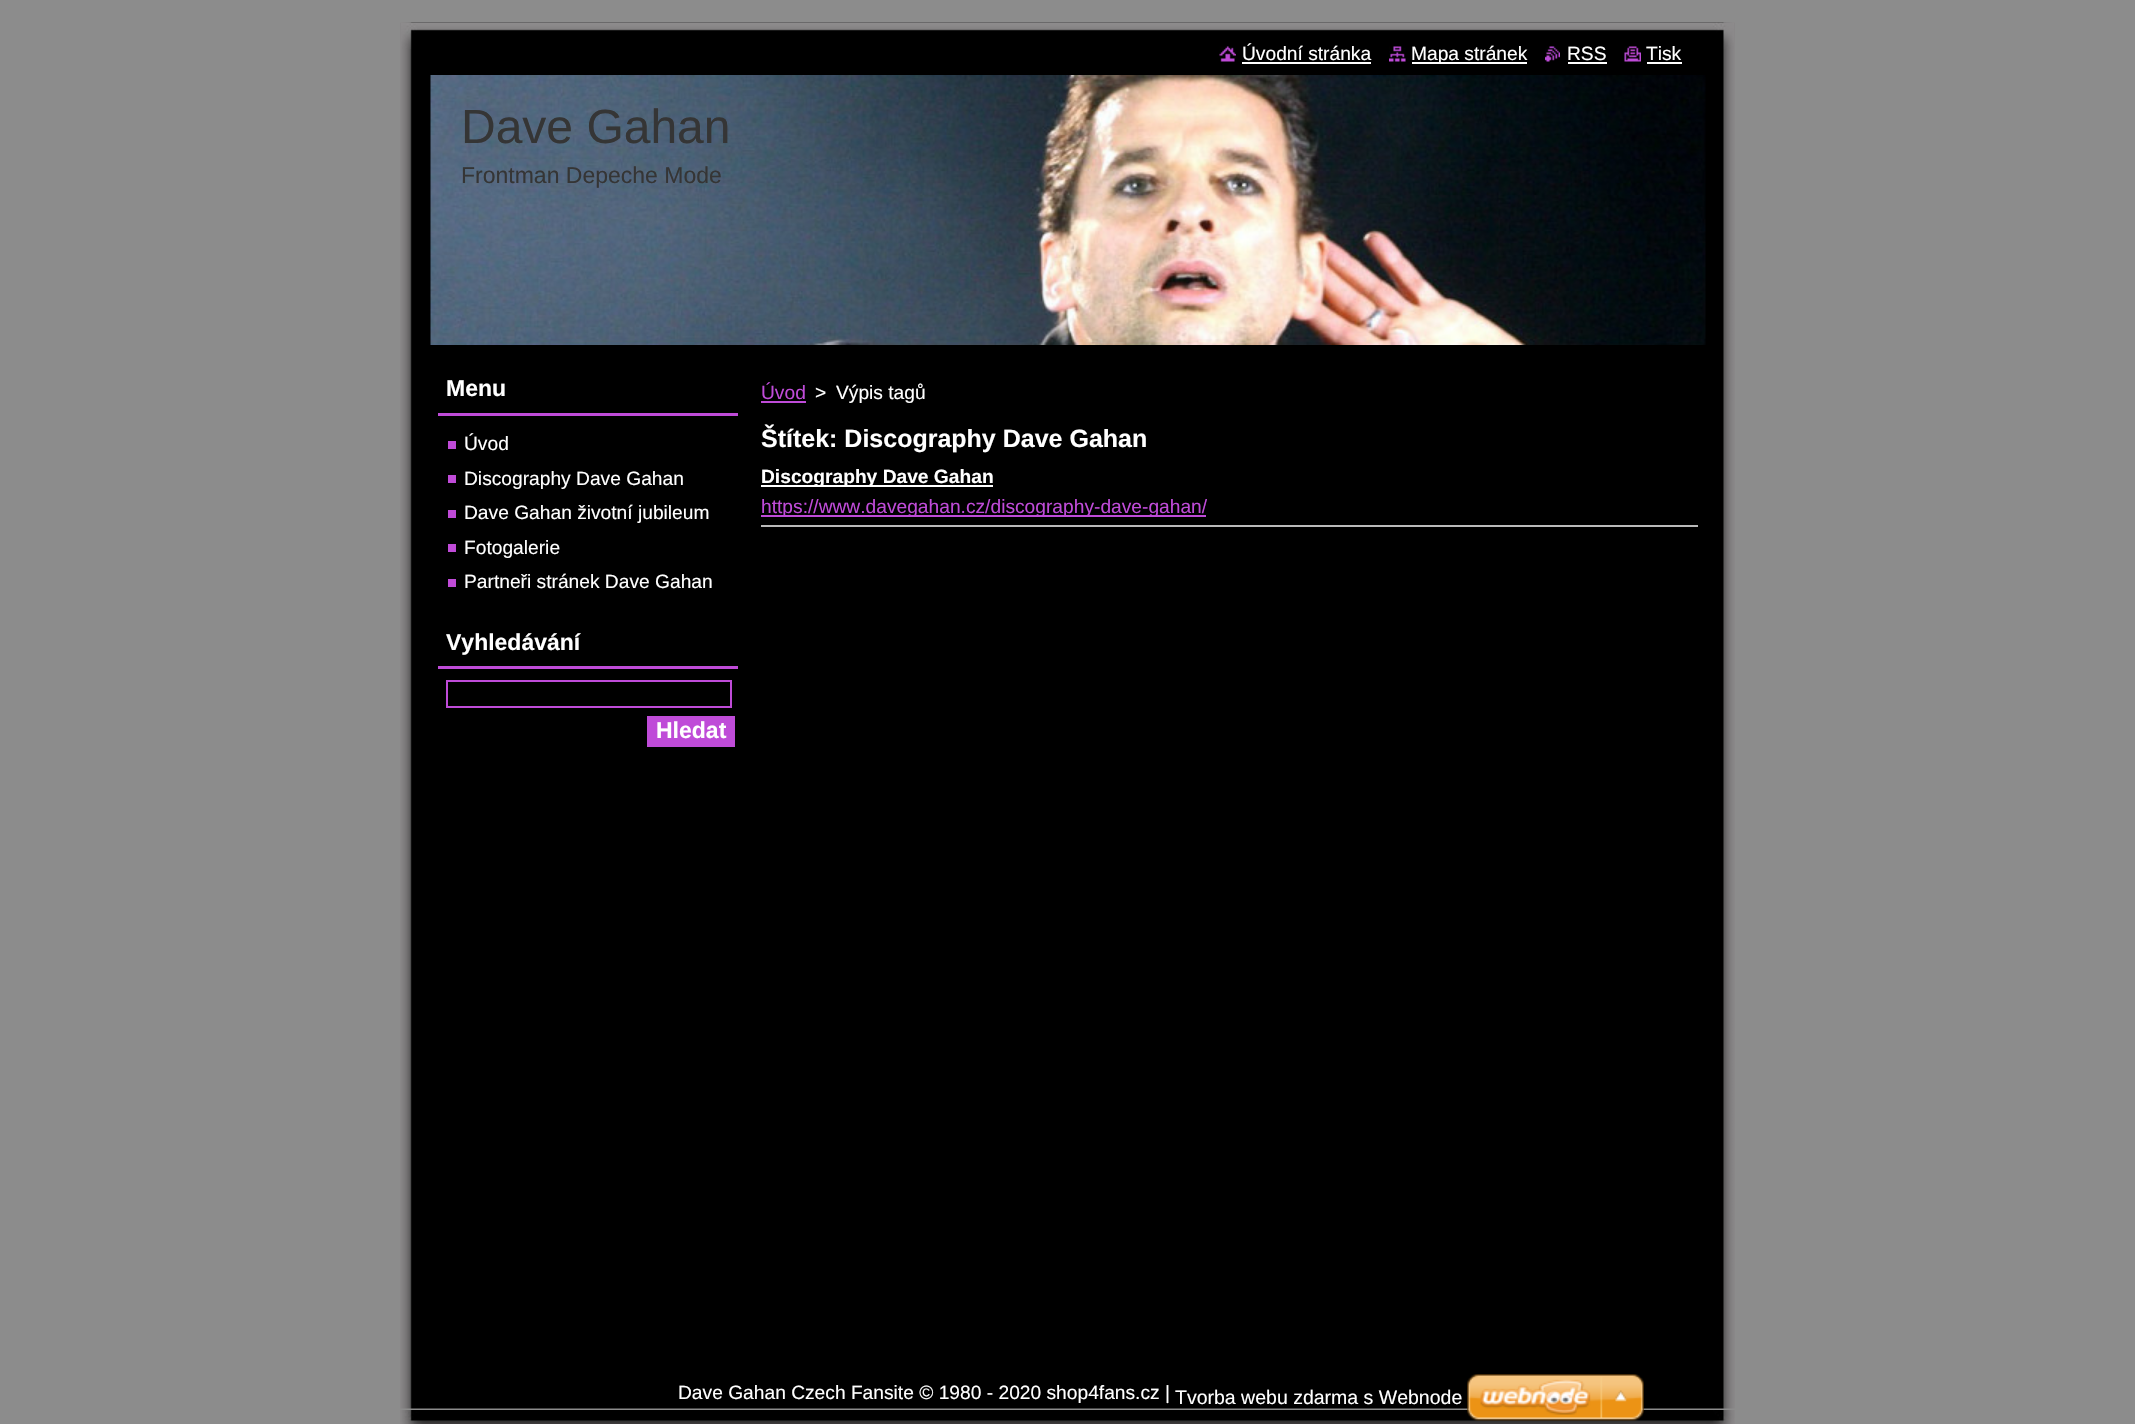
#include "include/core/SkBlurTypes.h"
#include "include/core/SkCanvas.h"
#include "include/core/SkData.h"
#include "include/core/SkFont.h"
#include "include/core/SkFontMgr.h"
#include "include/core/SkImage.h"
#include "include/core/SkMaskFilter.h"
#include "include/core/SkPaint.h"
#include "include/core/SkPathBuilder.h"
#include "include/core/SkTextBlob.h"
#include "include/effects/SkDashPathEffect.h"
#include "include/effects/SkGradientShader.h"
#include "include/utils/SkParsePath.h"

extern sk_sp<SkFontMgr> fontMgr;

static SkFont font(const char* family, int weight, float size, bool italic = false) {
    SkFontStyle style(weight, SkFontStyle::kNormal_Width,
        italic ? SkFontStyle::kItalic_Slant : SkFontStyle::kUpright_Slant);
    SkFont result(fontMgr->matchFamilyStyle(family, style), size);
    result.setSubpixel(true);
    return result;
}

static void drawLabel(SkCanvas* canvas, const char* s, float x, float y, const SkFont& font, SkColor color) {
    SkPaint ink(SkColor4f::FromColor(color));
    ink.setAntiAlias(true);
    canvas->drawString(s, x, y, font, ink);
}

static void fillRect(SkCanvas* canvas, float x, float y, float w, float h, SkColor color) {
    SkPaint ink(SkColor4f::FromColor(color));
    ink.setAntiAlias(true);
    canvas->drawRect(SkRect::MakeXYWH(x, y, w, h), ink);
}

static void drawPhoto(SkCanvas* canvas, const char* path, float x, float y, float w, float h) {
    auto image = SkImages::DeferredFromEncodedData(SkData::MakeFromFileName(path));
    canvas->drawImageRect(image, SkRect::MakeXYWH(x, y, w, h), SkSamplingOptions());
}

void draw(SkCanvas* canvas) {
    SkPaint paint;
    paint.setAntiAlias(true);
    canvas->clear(0xFF8C8C8C);
    drawPhoto(canvas, "assets/img1.png", 400, 22, 1335, 1368);
    drawPhoto(canvas, "assets/img2.png", 401, 22, 1333, 27);
    drawPhoto(canvas, "assets/img3.png", 1219, 46, 17, 16);
    SkFont font1 = font("Liberation Sans", 400, 19.2f);
    drawLabel(canvas, "Úvodní stránka", 1242, 60, font1, 0xFFFFFFFF);
    fillRect(canvas, 1242, 62, 129, 2, 0xFFFFFFFF);
    drawPhoto(canvas, "assets/img4.png", 1389, 46, 17, 16);
    fillRect(canvas, 1412, 62, 115, 2, 0xFFFFFFFF);
    drawLabel(canvas, "Mapa stránek", 1411, 60, font1, 0xFFFFFFFF);
    drawPhoto(canvas, "assets/img5.png", 1545, 46, 15, 16);
    drawLabel(canvas, "RSS", 1567, 60, font1, 0xFFFFFFFF);
    fillRect(canvas, 1568, 62, 39, 2, 0xFFFFFFFF);
    drawPhoto(canvas, "assets/img6.png", 1624, 46, 17, 16);
    drawLabel(canvas, "Tisk", 1646, 60, font1, 0xFFFFFFFF);
    fillRect(canvas, 1647, 62, 35, 2, 0xFFFFFFFF);
    drawPhoto(canvas, "assets/img7.png", 430, 75, 1276, 270);
    SkFont font2 = font("Liberation Sans", 400, 48);
    drawLabel(canvas, "Dave Gahan", 461, 143, font2, 0xFF353535);
    SkFont font3 = font("Liberation Sans", 400, 23);
    drawLabel(canvas, "Frontman Depeche Mode", 461, 183, font3, 0xFF353535);
    fillRect(canvas, 438, 413, 300, 3, 0xFFBF4BD8);
    SkFont font4 = font("Liberation Sans", 700, 23);
    drawLabel(canvas, "Menu", 446, 396, font4, 0xFFFFFFFF);
    drawLabel(canvas, "Úvod", 464, 450, font1, 0xFFFFFFFF);
    fillRect(canvas, 448, 441, 8, 8, 0xFFC04BD8);
    drawLabel(canvas, "Discography Dave Gahan", 464, 485, font1, 0xFFFFFFFF);
    fillRect(canvas, 448, 475, 8, 8, 0xFFC04BD8);
    drawLabel(canvas, "Dave Gahan životní jubileum", 464, 519, font1, 0xFFFFFFFF);
    fillRect(canvas, 448, 510, 8, 8, 0xFFC04BD8);
    drawLabel(canvas, "Fotogalerie", 464, 554, font1, 0xFFFFFFFF);
    fillRect(canvas, 448, 544, 8, 8, 0xFFC04BD8);
    drawLabel(canvas, "Partneři stránek Dave Gahan", 464, 588, font1, 0xFFFFFFFF);
    fillRect(canvas, 448, 579, 8, 8, 0xFFC04BD8);
    fillRect(canvas, 438, 666, 300, 3, 0xFFBF4BD8);
    drawLabel(canvas, "Vyhledávání", 446, 650, font4, 0xFFFFFFFF);
    paint.setStroke(true);
    paint.setStrokeWidth(2);
    paint.setColor(0xFFBF4BD8);
    canvas->drawRect(SkRect::MakeXYWH(447, 681, 284, 26), paint);
    fillRect(canvas, 647, 716, 88, 31, 0xFFBF4BD8);
    drawLabel(canvas, "Hledat", 656, 738, font4, 0xFFFFFFFF);
    drawLabel(canvas, "Úvod", 761, 399, font1, 0xFFBF4BD8);
    fillRect(canvas, 761, 401, 45, 2, 0xFFBF4BD8);
    drawLabel(canvas, ">", 815, 399, font1, 0xFFFFFFFF);
    drawLabel(canvas, "Výpis tagů", 836, 399, font1, 0xFFFFFFFF);
    SkFont font5 = font("Liberation Sans", 700, 25);
    drawLabel(canvas, "Štítek: Discography Dave Gahan", 761, 447, font5, 0xFFFFFFFF);
    fillRect(canvas, 761, 525, 937, 2, 0xFFB9B9B9);
    fillRect(canvas, 761, 485, 232, 2, 0xFFFFFFFF);
    SkFont font6 = font("Liberation Sans", 700, 19.2f);
    drawLabel(canvas, "Discography Dave Gahan", 761, 483, font6, 0xFFFFFFFF);
    fillRect(canvas, 761, 515, 445, 2, 0xFFBF4BD8);
    drawLabel(canvas, "https://www.davegahan.cz/discography-dave-gahan/", 761, 513, font1, 0xFFBF4BD8);
    drawPhoto(canvas, "assets/img8.png", 400, 1410, 1335, 14);
    drawPhoto(canvas, "assets/img9.png", 400, 1390, 1335, 19);
    drawLabel(canvas, "Dave Gahan Czech Fansite © 1980 - 2020 shop4fans.cz |", 678, 1399, font1, 0xFFFFFFFF);
    SkFont font7 = font("Liberation Sans", 400, 19.5f);
    drawLabel(canvas, "Tvorba webu zdarma s Webnode", 1175, 1404, font7, 0xFFFFFFFF);
    drawPhoto(canvas, "assets/img10.png", 1467, 1374, 177, 47);
}
